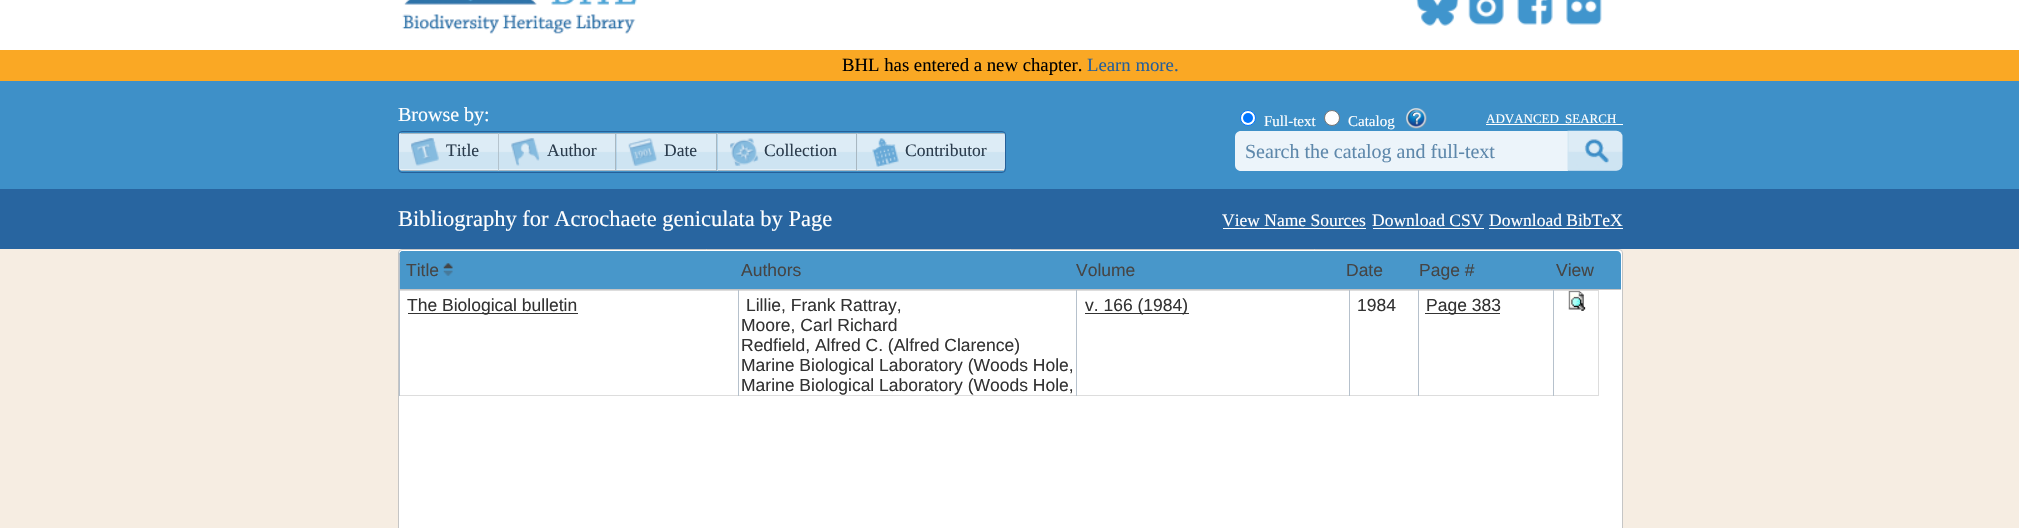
#include "include/core/SkBlurTypes.h"
#include "include/core/SkCanvas.h"
#include "include/core/SkData.h"
#include "include/core/SkFont.h"
#include "include/core/SkFontMgr.h"
#include "include/core/SkImage.h"
#include "include/core/SkMaskFilter.h"
#include "include/core/SkPaint.h"
#include "include/core/SkPathBuilder.h"
#include "include/core/SkTextBlob.h"
#include "include/effects/SkDashPathEffect.h"
#include "include/effects/SkGradientShader.h"
#include "include/utils/SkParsePath.h"

extern sk_sp<SkFontMgr> fontMgr;

static SkFont font(const char* family, int weight, float size, bool italic = false) {
    SkFontStyle style(weight, SkFontStyle::kNormal_Width,
        italic ? SkFontStyle::kItalic_Slant : SkFontStyle::kUpright_Slant);
    SkFont result(fontMgr->matchFamilyStyle(family, style), size);
    result.setSubpixel(true);
    return result;
}

static void drawLabel(SkCanvas* canvas, const char* s, float x, float y, const SkFont& font, SkColor color) {
    SkPaint ink(SkColor4f::FromColor(color));
    ink.setAntiAlias(true);
    canvas->drawString(s, x, y, font, ink);
}

static void fillRect(SkCanvas* canvas, float x, float y, float w, float h, SkColor color) {
    SkPaint ink(SkColor4f::FromColor(color));
    ink.setAntiAlias(true);
    canvas->drawRect(SkRect::MakeXYWH(x, y, w, h), ink);
}

static void drawPhoto(SkCanvas* canvas, const char* path, float x, float y, float w, float h) {
    auto image = SkImages::DeferredFromEncodedData(SkData::MakeFromFileName(path));
    canvas->drawImageRect(image, SkRect::MakeXYWH(x, y, w, h), SkSamplingOptions());
}

static SkPath parsePath(const char* data, bool evenOdd = false) {
    SkPath result = *SkParsePath::FromSVGString(data);
    if (evenOdd) result.setFillType(SkPathFillType::kEvenOdd);
    return result;
}

void draw(SkCanvas* canvas) {
    SkPaint paint;
    paint.setAntiAlias(true);
    canvas->clear(0xFFF6EDE2);
    fillRect(canvas, 0, 0, 2019, 50, 0xFFFFFFFF);
    drawPhoto(canvas, "assets/img1.png", 402, 0, 235, 34);
    drawPhoto(canvas, "assets/img2.png", 1416, 0, 43, 26);
    drawPhoto(canvas, "assets/img3.png", 1468, 0, 36, 25);
    drawPhoto(canvas, "assets/img4.png", 1517, 0, 36, 25);
    drawPhoto(canvas, "assets/img5.png", 1566, 0, 36, 25);
    fillRect(canvas, 0, 50, 2019, 31, 0xFFFAA824);
    SkFont font1 = font("Liberation Serif", 400, 18.75f);
    drawLabel(canvas, "BHL has entered a new chapter.", 842, 71, font1, 0xFF000000);
    drawLabel(canvas, "Learn more.", 1087, 71, font1, 0xFF265F99);
    fillRect(canvas, 0, 81, 2019, 108, 0xFF3E90C8);
    SkFont font2 = font("Liberation Serif", 400, 20);
    drawLabel(canvas, "Browse by:", 398, 121, font2, 0xFFFFFFFF);
    paint.setStroke(true);
    paint.setStrokeWidth(1);
    paint.setColor(0xFF266099);
    canvas->drawRoundRect(SkRect::MakeXYWH(398.5f, 131.5f, 607, 41), 3.5f, 3.5f, paint);
    drawPhoto(canvas, "assets/img6.png", 398, 133, 100, 38);
    fillRect(canvas, 401, 133, 98, 1, 0xFFA8B7C1);
    fillRect(canvas, 498, 133, 1, 38, 0xFFA8B7C1);
    fillRect(canvas, 401, 170, 98, 1, 0xFFA8B7C1);
    drawPhoto(canvas, "assets/img7.png", 411, 138, 28, 28);
    SkFont font3 = font("Liberation Serif", 400, 17.5f);
    drawLabel(canvas, "Title", 446, 156, font3, 0xFF2B3C4D);
    drawPhoto(canvas, "assets/img8.png", 498, 133, 119, 38);
    fillRect(canvas, 499, 133, 219, 1, 0xFFA8B7C1);
    fillRect(canvas, 615, 133, 1, 38, 0xFFA8B7C1);
    fillRect(canvas, 499, 170, 117, 1, 0xFFA8B7C1);
    drawPhoto(canvas, "assets/img9.png", 511, 138, 29, 28);
    drawLabel(canvas, "Author", 547, 156, font3, 0xFF2B3C4D);
    drawPhoto(canvas, "assets/img10.png", 616, 134, 102, 36);
    fillRect(canvas, 716, 133, 1, 38, 0xFFA8B7C1);
    fillRect(canvas, 616, 170, 102, 1, 0xFFA8B7C1);
    drawPhoto(canvas, "assets/img11.png", 628, 138, 29, 28);
    drawLabel(canvas, "Date", 664, 156, font3, 0xFF2B3C4D);
    fillRect(canvas, 857, 134, 1, 36, 0xFFCEE4F2);
    drawPhoto(canvas, "assets/img12.png", 717, 133, 141, 38);
    fillRect(canvas, 718, 133, 140, 1, 0xFFA8B7C1);
    fillRect(canvas, 856, 133, 1, 38, 0xFFA8B7C1);
    fillRect(canvas, 718, 170, 140, 1, 0xFFA8B7C1);
    drawPhoto(canvas, "assets/img13.png", 730, 138, 29, 28);
    drawLabel(canvas, "Collection", 764, 156, font3, 0xFF2B3C4D);
    drawPhoto(canvas, "assets/img14.png", 857, 133, 148, 38);
    fillRect(canvas, 858, 133, 146, 1, 0xFFA8B7C1);
    fillRect(canvas, 858, 170, 146, 1, 0xFFA8B7C1);
    drawPhoto(canvas, "assets/img15.png", 872, 138, 27, 29);
    drawLabel(canvas, "Contributor", 905, 156, font3, 0xFF2B3C4D);
    paint.setStroke(false);
    paint.setColor(0xFFFFFFFF);
    canvas->drawCircle(1248, 118, 7.5f, paint);
    paint.setStroke(true);
    paint.setColor(0xFF0075FF);
    canvas->drawCircle(1248, 118, 7.5f, paint);
    paint.setStroke(false);
    canvas->drawCircle(1248, 118, 5, paint);
    SkFont font4 = font("Liberation Serif", 400, 15);
    drawLabel(canvas, "Full-text", 1264, 126, font4, 0xFFFFFFFF);
    paint.setColor(0xFFFFFFFF);
    canvas->drawCircle(1332, 118, 7.5f, paint);
    paint.setStroke(true);
    paint.setColor(0xFF767676);
    canvas->drawCircle(1332, 118, 7.5f, paint);
    drawLabel(canvas, "Catalog", 1348, 126, font4, 0xFFFFFFFF);
    drawPhoto(canvas, "assets/img16.png", 1406, 108, 21, 21);
    SkFont font5 = font("Liberation Serif", 400, 13);
    drawLabel(canvas, "ADVANCED", 1486, 123, font5, 0xFFFFFFFF);
    fillRect(canvas, 1486, 124, 137, 1, 0xFFFFFFFF);
    drawLabel(canvas, "SEARCH", 1565, 123, font5, 0xFFFFFFFF);
    paint.setStroke(false);
    paint.setColor(0xFFECF4FA);
    canvas->drawPath(parsePath("M1241 131H1568V171H1241C1237.5 171 1235 168.5 1235 165V137C1235 133.5 1237.5 131 1241 131Z"), paint);
    drawLabel(canvas, "Search the catalog and full-text", 1245, 158, font2, 0xFF5E88AB);
    drawPhoto(canvas, "assets/img17.png", 1567, 130, 56, 41);
    fillRect(canvas, 0, 189, 2019, 60, 0xFF2865A0);
    SkFont font6 = font("Liberation Serif", 400, 22.5f);
    drawLabel(canvas, "Bibliography for Acrochaete geniculata by Page", 398, 226, font6, 0xFFFFFFFF);
    drawLabel(canvas, "View Name Sources", 1222, 226, font3, 0xFFFFFFFF);
    fillRect(canvas, 1223, 228, 143, 1, 0xFFFFFFFF);
    drawLabel(canvas, "Download CSV", 1372, 226, font3, 0xFFFFFFFF);
    fillRect(canvas, 1373, 228, 111, 1, 0xFFFFFFFF);
    drawLabel(canvas, "Download BibTeX", 1489, 226, font3, 0xFFFFFFFF);
    fillRect(canvas, 1489, 228, 134, 1, 0xFFFFFFFF);
    paint.setColor(0xFFFFFFFF);
    canvas->drawRoundRect(SkRect::MakeXYWH(398.5f, 249.5f, 1224, 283), 3.5f, 3.5f, paint);
    paint.setStroke(true);
    paint.setColor(0xFFC5C5C5);
    canvas->drawRoundRect(SkRect::MakeXYWH(398.5f, 249.5f, 1224, 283), 3.5f, 3.5f, paint);
    paint.setStroke(false);
    paint.setColor(0xFF4897CA);
    canvas->drawPath(parsePath("M403 251H1617C1619 251 1621 253 1621 255V290H399V255C399 253 401 251 403 251Z"), paint);
    fillRect(canvas, 399, 289, 1222, 1, 0xFFC5C5C5);
    canvas->save();
    canvas->clipPath(parsePath("M403 251H1617C1619 251 1621 253 1621 255V289H399V255C399 253 401 251 403 251Z"), true);
    fillRect(canvas, 399, 251, 1, 38, 0xFFB6C1CC);
    fillRect(canvas, 400, 251, 335, 38, 0xFF4897CA);
    canvas->restore();
    SkFont font7 = font("Liberation Sans", 400, 17.5f);
    drawLabel(canvas, "Title", 406, 276, font7, 0xFF454545);
    drawPhoto(canvas, "assets/img18.png", 443, 263, 10, 6);
    drawPhoto(canvas, "assets/img19.png", 443, 270, 10, 6);
    drawLabel(canvas, "Authors", 741, 276, font7, 0xFF454545);
    drawLabel(canvas, "Volume", 1076, 276, font7, 0xFF454545);
    drawLabel(canvas, "Date", 1346, 276, font7, 0xFF454545);
    drawLabel(canvas, "Page #", 1419, 276, font7, 0xFF454545);
    drawLabel(canvas, "View", 1556, 276, font7, 0xFF454545);
    fillRect(canvas, 399, 290, 1200, 1, 0xFFDDDDDD);
    fillRect(canvas, 1598, 290, 1, 106, 0xFFDDDDDD);
    fillRect(canvas, 399, 395, 1200, 1, 0xFFDDDDDD);
    fillRect(canvas, 399, 290, 1, 106, 0xFFB6C1CC);
    fillRect(canvas, 408, 313, 170, 1, 0xFF333333);
    drawLabel(canvas, "The Biological bulletin", 407, 311, font7, 0xFF333333);
    fillRect(canvas, 738, 290, 1, 106, 0xFFB6C1CC);
    drawLabel(canvas, "Lillie, Frank Rattray,", 746, 311, font7, 0xFF333333);
    drawLabel(canvas, "Moore, Carl Richard", 741, 331, font7, 0xFF333333);
    drawLabel(canvas, "Redfield, Alfred C. (Alfred Clarence)", 741, 351, font7, 0xFF333333);
    drawLabel(canvas, "Marine Biological Laboratory (Woods Hole,", 741, 371, font7, 0xFF333333);
    drawLabel(canvas, "Marine Biological Laboratory (Woods Hole,", 741, 391, font7, 0xFF333333);
    fillRect(canvas, 1076, 290, 1, 106, 0xFFB6C1CC);
    fillRect(canvas, 1085, 313, 104, 1, 0xFF333333);
    drawLabel(canvas, "v. 166 (1984)", 1085, 311, font7, 0xFF333333);
    fillRect(canvas, 1349, 290, 1, 106, 0xFFB6C1CC);
    drawLabel(canvas, "1984", 1357, 311, font7, 0xFF333333);
    fillRect(canvas, 1418, 290, 1, 106, 0xFFB6C1CC);
    fillRect(canvas, 1425, 313, 75, 1, 0xFF333333);
    drawLabel(canvas, "Page 383", 1426, 311, font7, 0xFF333333);
    fillRect(canvas, 1553, 290, 1, 106, 0xFFB6C1CC);
    drawPhoto(canvas, "assets/img20.png", 1568, 290, 18, 21);
}
